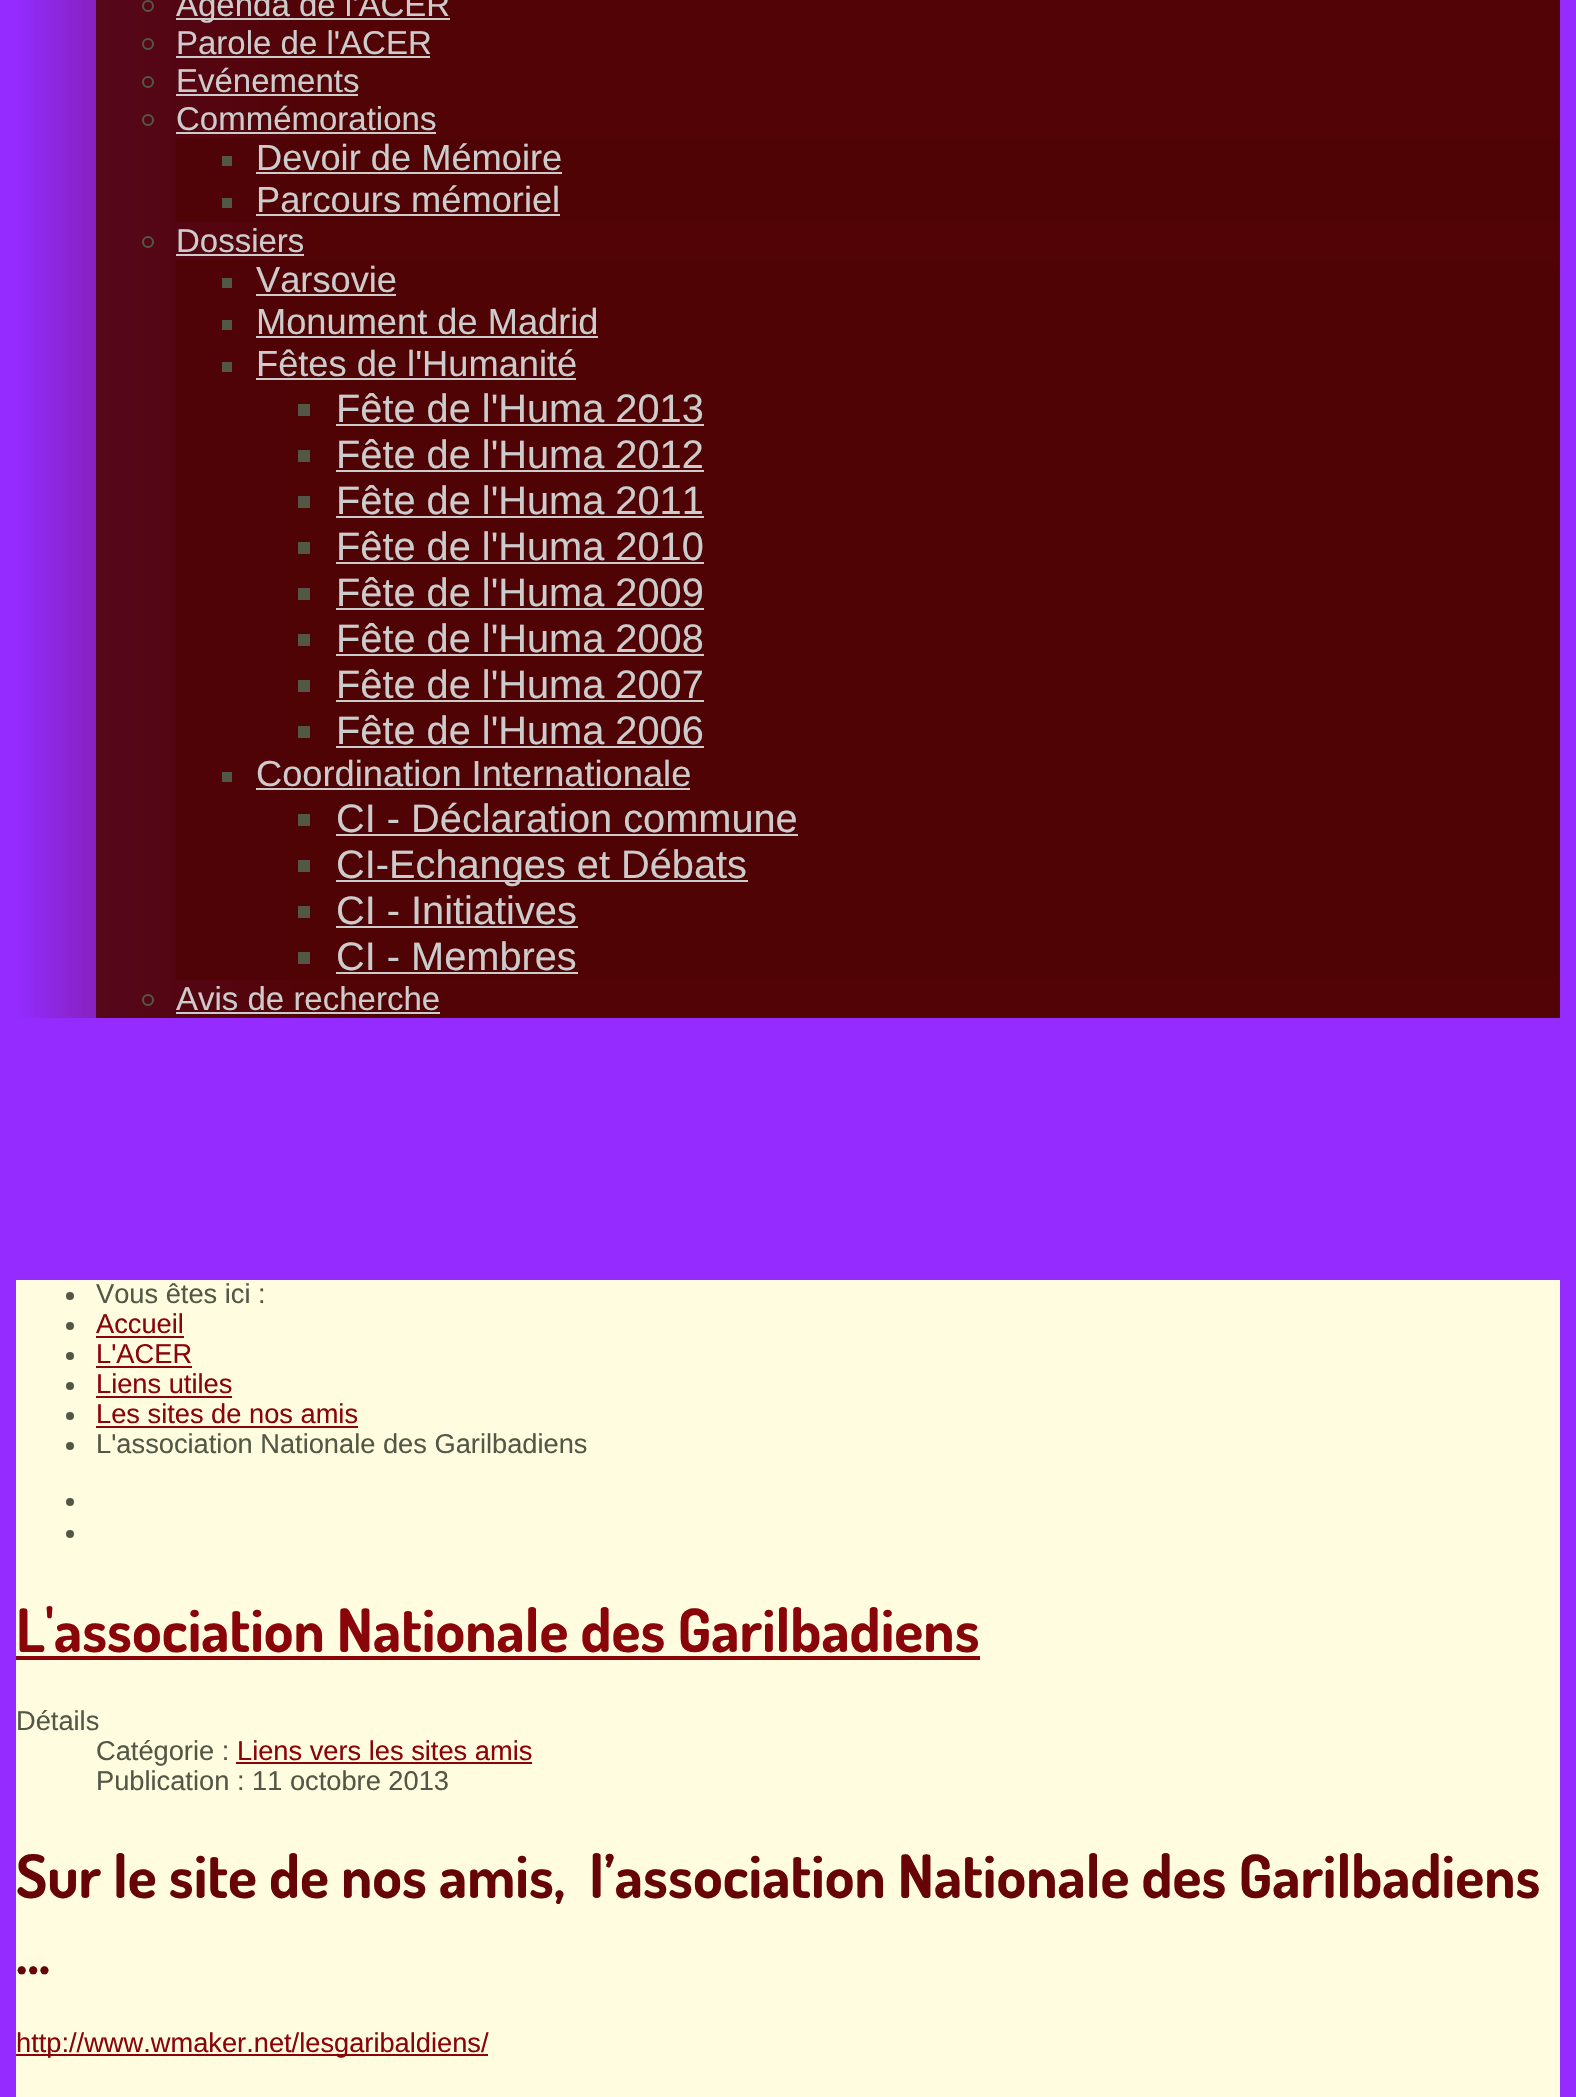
#include "include/core/SkBlurTypes.h"
#include "include/core/SkCanvas.h"
#include "include/core/SkData.h"
#include "include/core/SkFont.h"
#include "include/core/SkFontMgr.h"
#include "include/core/SkImage.h"
#include "include/core/SkMaskFilter.h"
#include "include/core/SkPaint.h"
#include "include/core/SkPathBuilder.h"
#include "include/core/SkTextBlob.h"
#include "include/effects/SkDashPathEffect.h"
#include "include/effects/SkGradientShader.h"
#include "include/utils/SkParsePath.h"

extern sk_sp<SkFontMgr> fontMgr;

static SkFont font(const char* family, int weight, float size, bool italic = false) {
    SkFontStyle style(weight, SkFontStyle::kNormal_Width,
        italic ? SkFontStyle::kItalic_Slant : SkFontStyle::kUpright_Slant);
    SkFont result(fontMgr->matchFamilyStyle(family, style), size);
    result.setSubpixel(true);
    return result;
}

static void drawLabel(SkCanvas* canvas, const char* s, float x, float y, const SkFont& font, SkColor color) {
    SkPaint ink(SkColor4f::FromColor(color));
    ink.setAntiAlias(true);
    canvas->drawString(s, x, y, font, ink);
}

static void fillRect(SkCanvas* canvas, float x, float y, float w, float h, SkColor color) {
    SkPaint ink(SkColor4f::FromColor(color));
    ink.setAntiAlias(true);
    canvas->drawRect(SkRect::MakeXYWH(x, y, w, h), ink);
}

void draw(SkCanvas* canvas) {
    SkPaint paint;
    paint.setAntiAlias(true);
    canvas->clear(0xFF952BFF);
    {
        const SkColor colors[] = {0xFF932CFF, 0xFF660407, 0xFF660407};
        const float stops[] = {0, 0.2f, 1};
        const SkPoint ends[] = {{16, -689}, {1560, -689}};
        paint.setShader(SkGradientShader::MakeLinear(ends, colors, stops, 3, SkTileMode::kClamp));
        paint.setAlpha(255);
    }
    canvas->drawRect(SkRect::MakeXYWH(19, 0, 77, 1018), paint);
    {
        const SkColor colors[] = {0xFF570823, 0xFF520305, 0xFF520305};
        const float stops[] = {0, 0.2f, 1};
        const SkPoint ends[] = {{16, -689}, {1560, -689}};
        paint.setShader(SkGradientShader::MakeLinear(ends, colors, stops, 3, SkTileMode::kClamp));
        paint.setAlpha(255);
    }
    canvas->drawRect(SkRect::MakeXYWH(96, 0, 1464, 1018), paint);
    {
        const SkColor colors[] = {0xFF500409, 0xFF4F0305, 0xFF4F0305};
        const float stops[] = {0, 0.2f, 1};
        const SkPoint ends[] = {{16, -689}, {1560, -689}};
        paint.setShader(SkGradientShader::MakeLinear(ends, colors, stops, 3, SkTileMode::kClamp));
        paint.setAlpha(255);
    }
    canvas->drawRect(SkRect::MakeXYWH(176, 260, 1384, 720), paint);
    canvas->drawRect(SkRect::MakeXYWH(176, 138, 1384, 84), paint);
    paint.setStroke(true);
    paint.setStrokeWidth(2);
    paint.setShader(nullptr);
    paint.setColor(0xFF535745);
    canvas->drawCircle(148, 6, 5, paint);
    fillRect(canvas, 176, 18, 274, 2, 0xFFCCCCCC);
    SkFont font1 = font("Liberation Sans", 400, 33);
    drawLabel(canvas, "Agenda de l'ACER", 176, 16, font1, 0xFFCCCCCC);
    canvas->drawCircle(148, 44, 5, paint);
    drawLabel(canvas, "Parole de l'ACER", 176, 54, font1, 0xFFCCCCCC);
    fillRect(canvas, 176, 56, 254, 2, 0xFFCCCCCC);
    canvas->drawCircle(148, 82, 5, paint);
    drawLabel(canvas, "Evénements", 176, 92, font1, 0xFFCCCCCC);
    fillRect(canvas, 176, 94, 182, 2, 0xFFCCCCCC);
    canvas->drawCircle(148, 120, 5, paint);
    drawLabel(canvas, "Commémorations", 176, 130, font1, 0xFFCCCCCC);
    fillRect(canvas, 176, 132, 260, 2, 0xFFCCCCCC);
    fillRect(canvas, 222, 156, 10, 10, 0xFF535745);
    SkFont font2 = font("Liberation Sans", 400, 36.25f);
    drawLabel(canvas, "Devoir de Mémoire", 256, 170, font2, 0xFFCCCCCC);
    fillRect(canvas, 256, 172, 306, 2, 0xFFCCCCCC);
    fillRect(canvas, 222, 198, 10, 10, 0xFF535745);
    drawLabel(canvas, "Parcours mémoriel", 256, 212, font2, 0xFFCCCCCC);
    fillRect(canvas, 256, 214, 304, 2, 0xFFCCCCCC);
    canvas->drawCircle(148, 242, 5, paint);
    drawLabel(canvas, "Dossiers", 176, 252, font1, 0xFFCCCCCC);
    fillRect(canvas, 176, 254, 128, 2, 0xFFCCCCCC);
    fillRect(canvas, 222, 278, 10, 10, 0xFF535745);
    drawLabel(canvas, "Varsovie", 256, 292, font2, 0xFFCCCCCC);
    fillRect(canvas, 256, 294, 140, 2, 0xFFCCCCCC);
    fillRect(canvas, 222, 320, 10, 10, 0xFF535745);
    drawLabel(canvas, "Monument de Madrid", 256, 334, font2, 0xFFCCCCCC);
    fillRect(canvas, 256, 336, 342, 2, 0xFFCCCCCC);
    fillRect(canvas, 222, 362, 10, 10, 0xFF535745);
    drawLabel(canvas, "Fêtes de l'Humanité", 256, 376, font2, 0xFFCCCCCC);
    fillRect(canvas, 256, 378, 320, 2, 0xFFCCCCCC);
    fillRect(canvas, 298, 404, 12, 12, 0xFF535745);
    SkFont font3 = font("Liberation Sans", 400, 39.75f);
    drawLabel(canvas, "Fête de l'Huma 2013", 336, 422, font3, 0xFFCCCCCC);
    fillRect(canvas, 336, 424, 368, 2, 0xFFCCCCCC);
    fillRect(canvas, 298, 450, 12, 12, 0xFF535745);
    drawLabel(canvas, "Fête de l'Huma 2012", 336, 468, font3, 0xFFCCCCCC);
    fillRect(canvas, 336, 470, 368, 2, 0xFFCCCCCC);
    fillRect(canvas, 298, 496, 12, 12, 0xFF535745);
    drawLabel(canvas, "Fête de l'Huma 2011", 336, 514, font3, 0xFFCCCCCC);
    fillRect(canvas, 336, 516, 368, 2, 0xFFCCCCCC);
    fillRect(canvas, 298, 542, 12, 12, 0xFF535745);
    drawLabel(canvas, "Fête de l'Huma 2010", 336, 560, font3, 0xFFCCCCCC);
    fillRect(canvas, 336, 562, 368, 2, 0xFFCCCCCC);
    fillRect(canvas, 298, 588, 12, 12, 0xFF535745);
    drawLabel(canvas, "Fête de l'Huma 2009", 336, 606, font3, 0xFFCCCCCC);
    fillRect(canvas, 336, 608, 368, 2, 0xFFCCCCCC);
    fillRect(canvas, 298, 634, 12, 12, 0xFF535745);
    drawLabel(canvas, "Fête de l'Huma 2008", 336, 652, font3, 0xFFCCCCCC);
    fillRect(canvas, 336, 654, 368, 2, 0xFFCCCCCC);
    fillRect(canvas, 298, 680, 12, 12, 0xFF535745);
    drawLabel(canvas, "Fête de l'Huma 2007", 336, 698, font3, 0xFFCCCCCC);
    fillRect(canvas, 336, 700, 368, 2, 0xFFCCCCCC);
    fillRect(canvas, 298, 726, 12, 12, 0xFF535745);
    drawLabel(canvas, "Fête de l'Huma 2006", 336, 744, font3, 0xFFCCCCCC);
    fillRect(canvas, 336, 746, 368, 2, 0xFFCCCCCC);
    fillRect(canvas, 222, 772, 10, 10, 0xFF535745);
    drawLabel(canvas, "Coordination Internationale", 256, 786, font2, 0xFFCCCCCC);
    fillRect(canvas, 256, 788, 434, 2, 0xFFCCCCCC);
    fillRect(canvas, 298, 814, 12, 12, 0xFF535745);
    drawLabel(canvas, "CI - Déclaration commune", 336, 832, font3, 0xFFCCCCCC);
    fillRect(canvas, 336, 834, 462, 2, 0xFFCCCCCC);
    fillRect(canvas, 298, 860, 12, 12, 0xFF535745);
    fillRect(canvas, 336, 880, 412, 2, 0xFFCCCCCC);
    drawLabel(canvas, "CI-Echanges et Débats", 336, 878, font3, 0xFFCCCCCC);
    fillRect(canvas, 298, 906, 12, 12, 0xFF535745);
    drawLabel(canvas, "CI - Initiatives", 336, 924, font3, 0xFFCCCCCC);
    fillRect(canvas, 336, 926, 242, 2, 0xFFCCCCCC);
    fillRect(canvas, 298, 952, 12, 12, 0xFF535745);
    drawLabel(canvas, "CI - Membres", 336, 970, font3, 0xFFCCCCCC);
    fillRect(canvas, 336, 972, 242, 2, 0xFFCCCCCC);
    canvas->drawCircle(148, 1000, 5, paint);
    drawLabel(canvas, "Avis de recherche", 176, 1010, font1, 0xFFCCCCCC);
    fillRect(canvas, 176, 1012, 264, 2, 0xFFCCCCCC);
    fillRect(canvas, 16, 1280, 1544, 817, 0xFFFFFCE0);
    paint.setStroke(false);
    canvas->drawCircle(70, 1296, 4, paint);
    SkFont font4 = font("Liberation Sans", 400, 27.25f);
    drawLabel(canvas, "Vous êtes ici :", 96, 1303, font4, 0xFF535745);
    canvas->drawCircle(70, 1326, 4, paint);
    drawLabel(canvas, "Accueil", 96, 1333, font4, 0xFF8A050A);
    fillRect(canvas, 96, 1336, 88, 2, 0xFF8A050A);
    canvas->drawCircle(70, 1356, 4, paint);
    drawLabel(canvas, "L'ACER", 96, 1363, font4, 0xFF8A050A);
    fillRect(canvas, 96, 1366, 96, 2, 0xFF8A050A);
    canvas->drawCircle(70, 1386, 4, paint);
    drawLabel(canvas, "Liens utiles", 96, 1393, font4, 0xFF8A050A);
    fillRect(canvas, 96, 1396, 136, 2, 0xFF8A050A);
    canvas->drawCircle(70, 1416, 4, paint);
    drawLabel(canvas, "Les sites de nos amis", 96, 1423, font4, 0xFF8A050A);
    fillRect(canvas, 96, 1426, 262, 2, 0xFF8A050A);
    canvas->drawCircle(70, 1446, 4, paint);
    drawLabel(canvas, "L'association Nationale des Garilbadiens", 96, 1453, font4, 0xFF535745);
    canvas->drawCircle(70, 1502, 4, paint);
    canvas->drawCircle(70, 1534, 4, paint);
    SkFont font5 = font("Dosis", 700, 59.85f);
    drawLabel(canvas, "L'association Nationale des Garilbadiens", 16, 1652, font5, 0xFF8A050A);
    fillRect(canvas, 16, 1656, 964, 4, 0xFF8A050A);
    drawLabel(canvas, "Détails", 16, 1730, font4, 0xFF535745);
    drawLabel(canvas, "Catégorie :", 96, 1760, font4, 0xFF535745);
    drawLabel(canvas, "Liens vers les sites amis", 237, 1760, font4, 0xFF8A050A);
    fillRect(canvas, 236, 1762, 296, 2, 0xFF8A050A);
    drawLabel(canvas, "Publication : 11 octobre 2013", 96, 1790, font4, 0xFF535745);
    drawLabel(canvas, "Sur le site de nos amis,  l’association Nationale des Garilbadiens", 16, 1898, font5, 0xFF660407);
    drawLabel(canvas, "...", 16, 1974, font5, 0xFF660407);
    fillRect(canvas, 16, 2054, 472, 2, 0xFF8A050A);
    drawLabel(canvas, "http://www.wmaker.net/lesgaribaldiens/", 16, 2052, font4, 0xFF8A050A);
}
